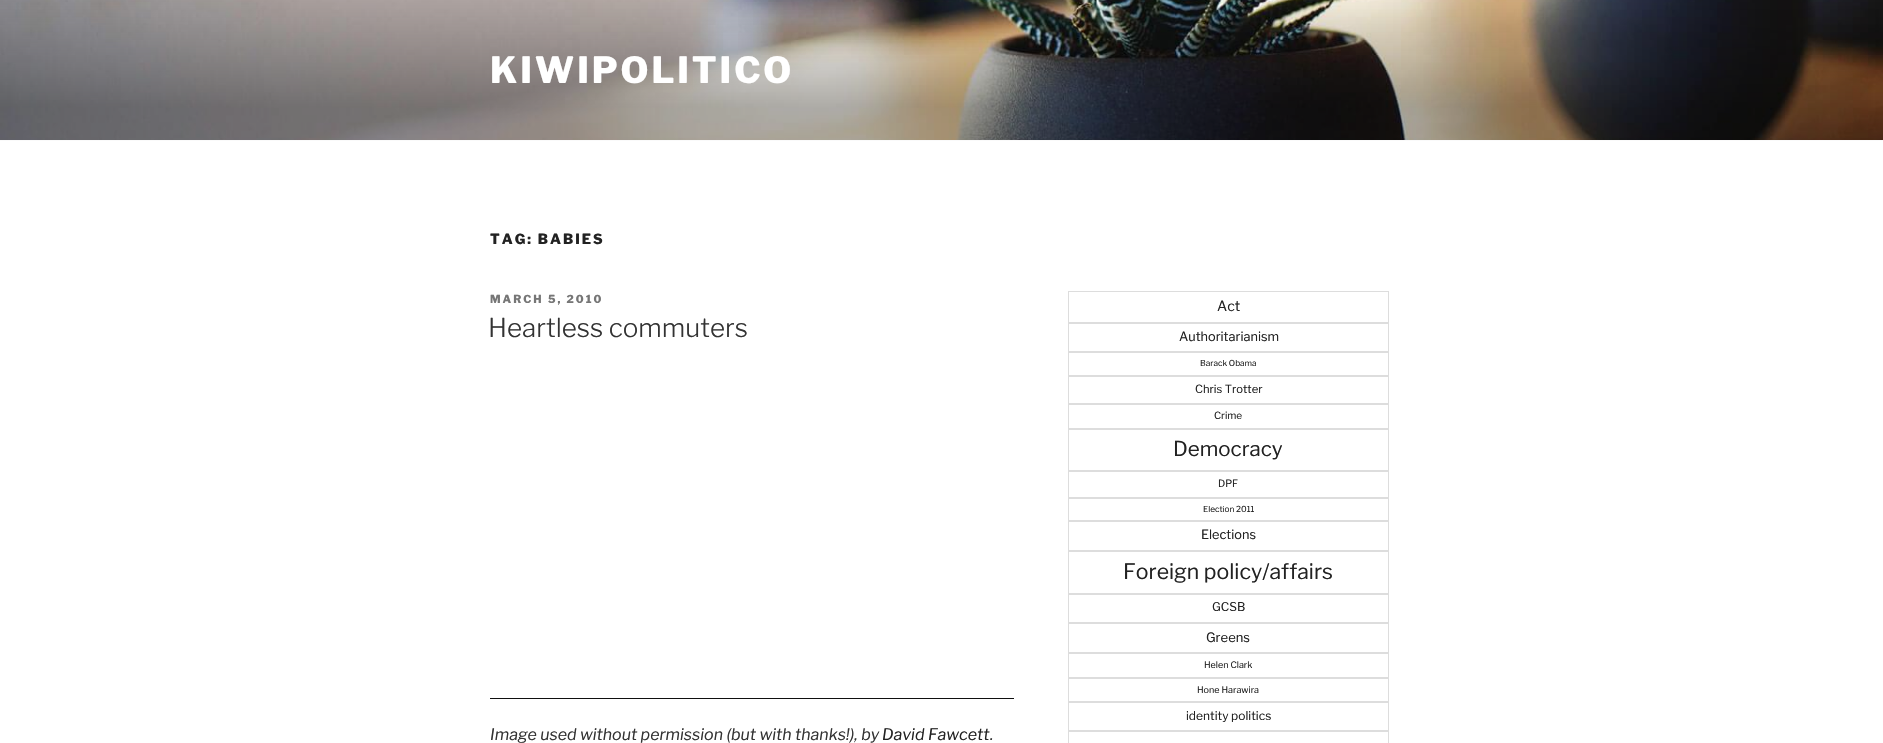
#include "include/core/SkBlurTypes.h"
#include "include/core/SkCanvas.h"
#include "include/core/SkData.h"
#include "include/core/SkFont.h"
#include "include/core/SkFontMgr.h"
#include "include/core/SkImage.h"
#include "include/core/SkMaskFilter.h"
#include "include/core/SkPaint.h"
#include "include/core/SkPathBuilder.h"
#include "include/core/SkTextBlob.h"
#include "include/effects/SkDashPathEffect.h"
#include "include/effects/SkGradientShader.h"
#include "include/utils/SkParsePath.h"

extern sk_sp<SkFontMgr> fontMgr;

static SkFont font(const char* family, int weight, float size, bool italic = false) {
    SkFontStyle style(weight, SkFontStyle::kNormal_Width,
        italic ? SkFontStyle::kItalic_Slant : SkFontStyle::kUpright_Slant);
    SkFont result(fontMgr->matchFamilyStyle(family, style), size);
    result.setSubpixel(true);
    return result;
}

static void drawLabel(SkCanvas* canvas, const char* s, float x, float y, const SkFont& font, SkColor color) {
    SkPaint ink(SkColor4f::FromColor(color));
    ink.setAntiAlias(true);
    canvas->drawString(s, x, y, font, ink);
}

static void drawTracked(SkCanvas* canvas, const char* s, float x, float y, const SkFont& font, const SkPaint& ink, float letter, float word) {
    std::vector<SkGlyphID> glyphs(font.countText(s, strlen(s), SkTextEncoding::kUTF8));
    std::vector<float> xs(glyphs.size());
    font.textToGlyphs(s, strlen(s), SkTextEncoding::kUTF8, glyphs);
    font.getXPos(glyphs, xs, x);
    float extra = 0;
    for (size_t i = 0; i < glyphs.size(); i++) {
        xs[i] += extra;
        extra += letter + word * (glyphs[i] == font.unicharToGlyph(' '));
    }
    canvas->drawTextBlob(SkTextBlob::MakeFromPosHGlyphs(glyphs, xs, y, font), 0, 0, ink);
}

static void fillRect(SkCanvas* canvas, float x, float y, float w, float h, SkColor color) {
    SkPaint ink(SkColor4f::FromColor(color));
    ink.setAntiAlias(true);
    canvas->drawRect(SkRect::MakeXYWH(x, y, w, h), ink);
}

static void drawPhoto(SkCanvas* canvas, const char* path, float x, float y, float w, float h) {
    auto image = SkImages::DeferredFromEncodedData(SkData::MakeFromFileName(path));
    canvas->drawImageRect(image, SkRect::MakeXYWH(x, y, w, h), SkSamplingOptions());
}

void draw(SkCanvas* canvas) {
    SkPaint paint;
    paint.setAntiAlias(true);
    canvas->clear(0xFFFFFFFF);
    fillRect(canvas, 0, 140, 1883, 1, 0xFFFAFAFA);
    drawPhoto(canvas, "assets/img1.png", 0, 0, 1883, 140);
    SkFont font1 = font("Libre Franklin", 100, 36);
    paint.setColor(0xFFFFFFFF);
    drawTracked(canvas, "KIWIPOLITICO", 490, 83, font1, paint, 2.9f, 0);
    SkFont font2 = font("Libre Franklin", 100, 14);
    paint.setColor(0xFF222222);
    drawTracked(canvas, "TAG: BABIES", 490, 244, font2, paint, 2, 0);
    SkFont font3 = font("Libre Franklin", 100, 11);
    paint.setColor(0xFF767676);
    drawTracked(canvas, "MARCH 5, 2010", 490, 303, font3, paint, 2, 0);
    SkFont font4 = font("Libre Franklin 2", 100, 26);
    drawLabel(canvas, "Heartless commuters", 488, 337, font4, 0xFF333333);
    fillRect(canvas, 490, 698, 524, 1, 0xFF0F0F0F);
    SkFont font5 = font("Libre Franklin", 100, 16, true);
    drawLabel(canvas, "Image used without permission (but with thanks!), by", 490, 740, font5, 0xFF333333);
    drawLabel(canvas, "David Fawcett", 882, 740, font5, 0xFF222222);
    drawLabel(canvas, ".", 990, 740, font5, 0xFF333333);
    paint.setStroke(true);
    paint.setStrokeWidth(1);
    paint.setColor(0xFFDDDDDD);
    canvas->drawRect(SkRect::MakeXYWH(1068.5f, 291.5f, 320, 31), paint);
    SkFont font6 = font("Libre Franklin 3", 100, 14);
    drawLabel(canvas, "Act", 1217, 311, font6, 0xFF222222);
    canvas->drawRect(SkRect::MakeXYWH(1068.5f, 323.5f, 320, 28), paint);
    SkFont font7 = font("Libre Franklin 3", 100, 12.75f);
    drawLabel(canvas, "Authoritarianism", 1179, 341, font7, 0xFF222222);
    canvas->drawRect(SkRect::MakeXYWH(1068.5f, 352.5f, 320, 23), paint);
    SkFont font8 = font("Libre Franklin 3", 100, 8.25f);
    drawLabel(canvas, "Barack Obama", 1200, 366, font8, 0xFF222222);
    canvas->drawRect(SkRect::MakeXYWH(1068.5f, 376.5f, 320, 27), paint);
    SkFont font9 = font("Libre Franklin 3", 100, 11.25f);
    drawLabel(canvas, "Chris Trotter", 1195, 393, font9, 0xFF222222);
    canvas->drawRect(SkRect::MakeXYWH(1068.5f, 404.5f, 320, 24), paint);
    SkFont font10 = font("Libre Franklin 3", 100, 10);
    drawLabel(canvas, "Crime", 1214, 419, font10, 0xFF222222);
    canvas->drawRect(SkRect::MakeXYWH(1068.5f, 429.5f, 320, 41), paint);
    SkFont font11 = font("Libre Franklin 3", 100, 20.5f);
    drawLabel(canvas, "Democracy", 1173, 456, font11, 0xFF222222);
    canvas->drawRect(SkRect::MakeXYWH(1068.5f, 471.5f, 320, 26), paint);
    drawLabel(canvas, "DPF", 1218, 487, font10, 0xFF222222);
    canvas->drawRect(SkRect::MakeXYWH(1068.5f, 498.5f, 320, 22), paint);
    drawLabel(canvas, "Election 2011", 1203, 512, font8, 0xFF222222);
    canvas->drawRect(SkRect::MakeXYWH(1068.5f, 521.5f, 320, 29), paint);
    drawLabel(canvas, "Elections", 1201, 539, font7, 0xFF222222);
    canvas->drawRect(SkRect::MakeXYWH(1068.5f, 551.5f, 320, 42), paint);
    SkFont font12 = font("Libre Franklin 3", 100, 21.25f);
    drawLabel(canvas, "Foreign policy/affairs", 1123, 579, font12, 0xFF222222);
    canvas->drawRect(SkRect::MakeXYWH(1068.5f, 594.5f, 320, 28), paint);
    SkFont font13 = font("Libre Franklin 3", 100, 12);
    drawLabel(canvas, "GCSB", 1212, 611, font13, 0xFF222222);
    canvas->drawRect(SkRect::MakeXYWH(1068.5f, 623.5f, 320, 29), paint);
    SkFont font14 = font("Libre Franklin 3", 100, 13);
    drawLabel(canvas, "Greens", 1206, 642, font14, 0xFF222222);
    canvas->drawRect(SkRect::MakeXYWH(1068.5f, 653.5f, 320, 24), paint);
    SkFont font15 = font("Libre Franklin 3", 100, 9);
    drawLabel(canvas, "Helen Clark", 1204, 668, font15, 0xFF222222);
    canvas->drawRect(SkRect::MakeXYWH(1068.5f, 678.5f, 320, 23), paint);
    drawLabel(canvas, "Hone Harawira", 1197, 693, font15, 0xFF222222);
    canvas->drawRect(SkRect::MakeXYWH(1068.5f, 702.5f, 320, 28), paint);
    drawLabel(canvas, "identity politics", 1186, 720, font13, 0xFF222222);
    canvas->drawRect(SkRect::MakeXYWH(1068.5f, 731.5f, 320, 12), paint);
}
